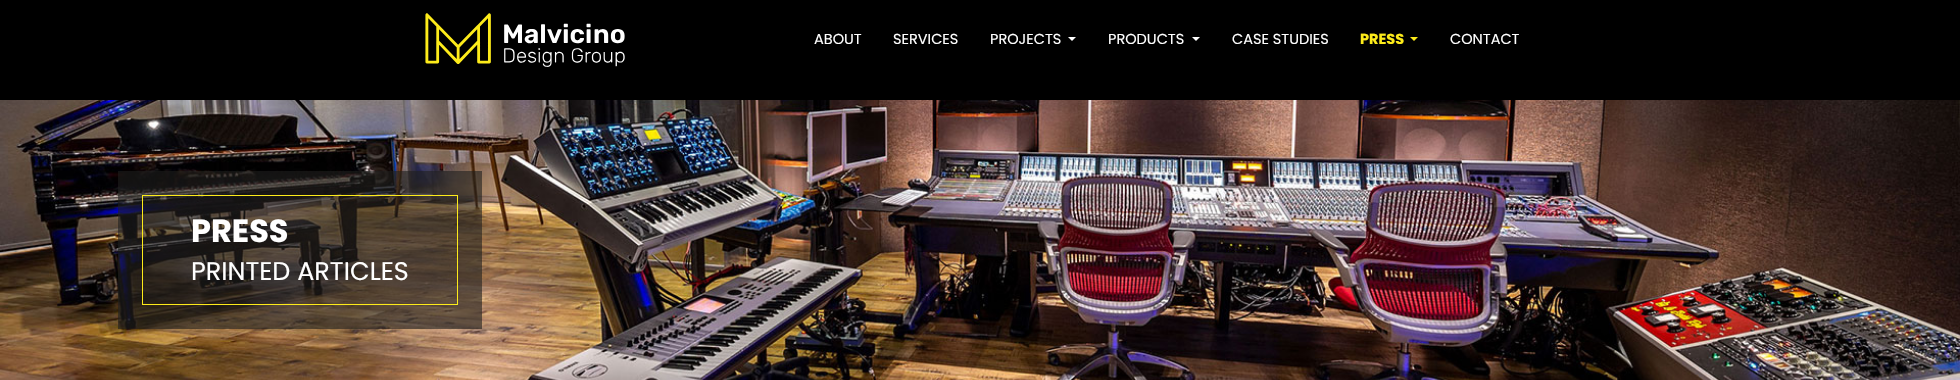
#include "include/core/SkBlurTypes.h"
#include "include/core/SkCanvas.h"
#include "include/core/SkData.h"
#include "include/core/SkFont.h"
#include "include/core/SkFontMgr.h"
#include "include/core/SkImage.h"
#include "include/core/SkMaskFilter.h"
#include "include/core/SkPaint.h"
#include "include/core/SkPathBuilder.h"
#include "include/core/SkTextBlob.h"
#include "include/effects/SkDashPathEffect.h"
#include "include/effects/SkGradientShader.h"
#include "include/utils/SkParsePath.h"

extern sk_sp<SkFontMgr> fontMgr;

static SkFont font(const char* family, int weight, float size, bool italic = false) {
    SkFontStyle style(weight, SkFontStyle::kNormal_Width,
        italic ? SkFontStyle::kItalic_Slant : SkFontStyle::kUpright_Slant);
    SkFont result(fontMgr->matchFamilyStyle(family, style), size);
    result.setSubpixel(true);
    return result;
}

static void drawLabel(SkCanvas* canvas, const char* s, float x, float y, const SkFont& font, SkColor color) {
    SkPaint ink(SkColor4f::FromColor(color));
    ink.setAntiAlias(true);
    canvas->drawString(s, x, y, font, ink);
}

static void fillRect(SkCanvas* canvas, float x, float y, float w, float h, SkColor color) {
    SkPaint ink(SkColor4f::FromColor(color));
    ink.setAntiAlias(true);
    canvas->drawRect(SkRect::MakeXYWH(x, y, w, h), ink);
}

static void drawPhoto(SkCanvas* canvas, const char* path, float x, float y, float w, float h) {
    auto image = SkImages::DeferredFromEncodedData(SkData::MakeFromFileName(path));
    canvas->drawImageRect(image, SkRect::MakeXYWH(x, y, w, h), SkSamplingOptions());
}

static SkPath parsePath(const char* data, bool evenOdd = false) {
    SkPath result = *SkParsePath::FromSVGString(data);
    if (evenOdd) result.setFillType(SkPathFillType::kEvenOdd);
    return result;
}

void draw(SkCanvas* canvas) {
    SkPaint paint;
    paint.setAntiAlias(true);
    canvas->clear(0xFF000000);
    drawPhoto(canvas, "assets/img1.png", 425, 13, 200, 54);
    SkFont font1 = font("Poppins", 400, 14.5f);
    drawLabel(canvas, "ABOUT", 814, 44, font1, 0xFFFFFFFF);
    drawLabel(canvas, "SERVICES", 893, 44, font1, 0xFFFFFFFF);
    drawLabel(canvas, "PROJECTS", 990, 44, font1, 0xFFFFFFFF);
    paint.setColor(0xFFFFFFFF);
    canvas->drawPath(parsePath("M1068 37H1076L1072 41Z"), paint);
    drawLabel(canvas, "PRODUCTS", 1108, 44, font1, 0xFFFFFFFF);
    canvas->drawPath(parsePath("M1192 37H1200L1196 41Z"), paint);
    drawLabel(canvas, "CASE STUDIES", 1232, 44, font1, 0xFFFFFFFF);
    SkFont font2 = font("Poppins", 700, 14.5f);
    drawLabel(canvas, "PRESS", 1360, 44, font2, 0xFFFDEB1A);
    paint.setColor(0xFFFDEB1A);
    canvas->drawPath(parsePath("M1410 37H1418L1414 41Z"), paint);
    drawLabel(canvas, "CONTACT", 1450, 44, font1, 0xFFFFFFFF);
    drawPhoto(canvas, "assets/img2.png", 0, 100, 1960, 280);
    fillRect(canvas, 118, 171, 364, 158, 0x991E1E1C);
    paint.setStroke(true);
    paint.setStrokeWidth(1);
    canvas->drawRect(SkRect::MakeXYWH(142.5f, 195.5f, 315, 109), paint);
    SkFont font3 = font("Poppins", 700, 32);
    drawLabel(canvas, "PRESS", 191, 242, font3, 0xFFFFFFFF);
    SkFont font4 = font("Poppins", 400, 25.5f);
    drawLabel(canvas, "PRINTED ARTICLES", 191, 280, font4, 0xFFFFFFFF);
}
